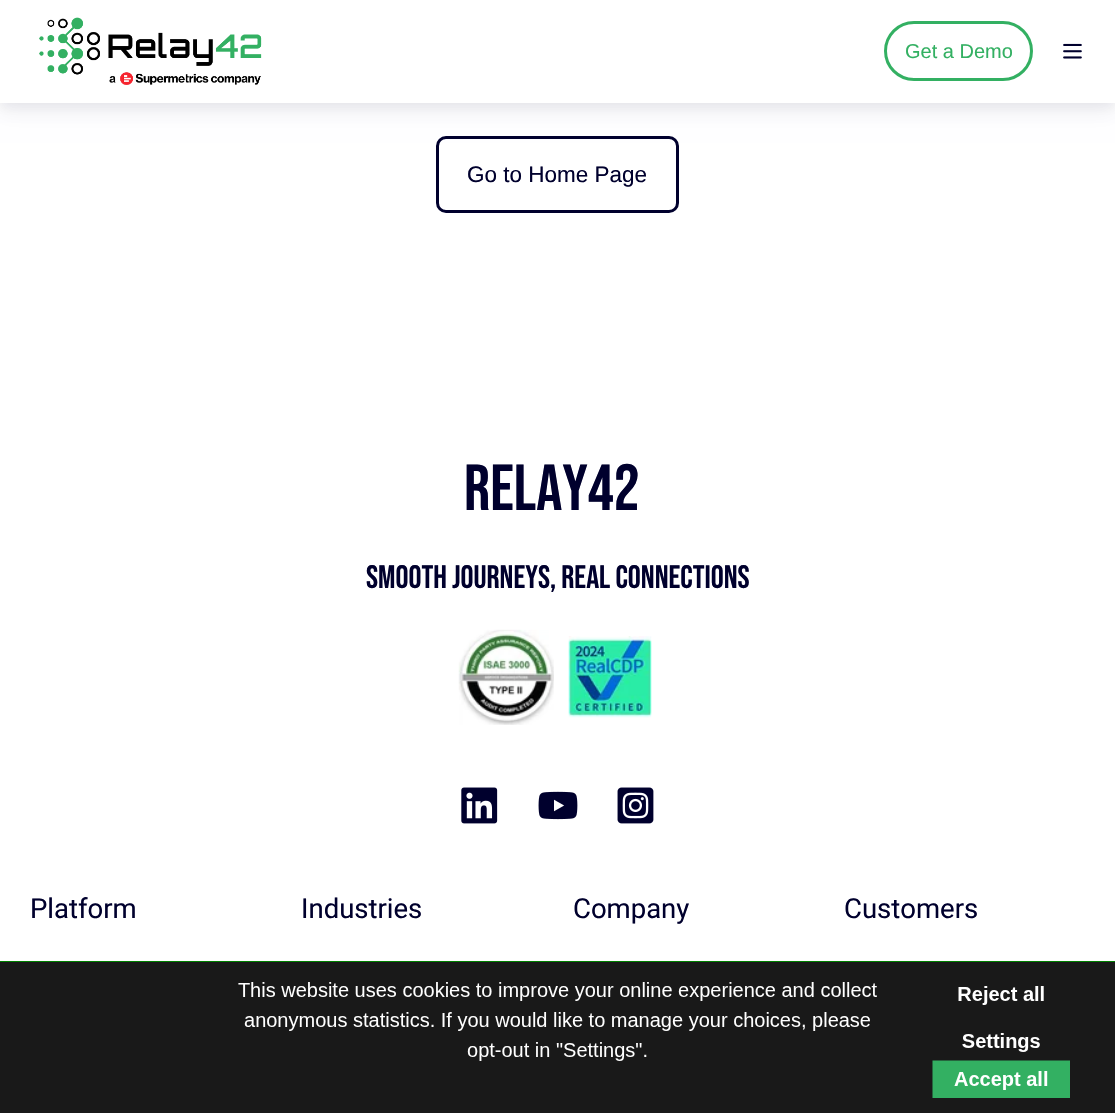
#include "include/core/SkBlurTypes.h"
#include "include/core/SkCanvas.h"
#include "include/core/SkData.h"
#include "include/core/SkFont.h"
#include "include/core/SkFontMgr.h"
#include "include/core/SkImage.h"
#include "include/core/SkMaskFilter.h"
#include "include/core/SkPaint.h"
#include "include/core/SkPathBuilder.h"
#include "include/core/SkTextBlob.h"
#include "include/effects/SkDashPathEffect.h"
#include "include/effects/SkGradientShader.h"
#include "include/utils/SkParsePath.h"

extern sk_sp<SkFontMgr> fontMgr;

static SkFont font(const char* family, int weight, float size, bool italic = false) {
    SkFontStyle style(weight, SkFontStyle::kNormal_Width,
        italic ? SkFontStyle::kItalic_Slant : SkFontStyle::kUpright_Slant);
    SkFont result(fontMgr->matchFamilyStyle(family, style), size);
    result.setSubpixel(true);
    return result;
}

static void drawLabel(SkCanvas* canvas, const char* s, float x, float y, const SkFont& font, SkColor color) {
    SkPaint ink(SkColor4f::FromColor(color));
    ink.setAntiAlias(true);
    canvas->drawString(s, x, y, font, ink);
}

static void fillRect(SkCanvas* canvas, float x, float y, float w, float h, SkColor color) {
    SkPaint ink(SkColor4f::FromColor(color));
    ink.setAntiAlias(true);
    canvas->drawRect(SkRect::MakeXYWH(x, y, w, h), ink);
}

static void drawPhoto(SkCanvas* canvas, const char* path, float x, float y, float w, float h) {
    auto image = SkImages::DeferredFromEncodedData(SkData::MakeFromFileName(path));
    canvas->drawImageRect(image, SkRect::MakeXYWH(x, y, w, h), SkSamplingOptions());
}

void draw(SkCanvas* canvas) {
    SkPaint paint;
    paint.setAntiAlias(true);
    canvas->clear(0xFFFFFFFF);
    fillRect(canvas, 0, 962, 1115, 151, 0xFF191919);
    paint.setColor(0x0D00002D);
    paint.setMaskFilter(SkMaskFilter::MakeBlur(kNormal_SkBlurStyle, 5));
    canvas->drawRect(SkRect::MakeXYWH(0, 5, 1115, 103), paint);
    paint.setMaskFilter(nullptr);
    paint.setStroke(true);
    paint.setStrokeWidth(3);
    paint.setColor(0xFF00002D);
    canvas->drawRoundRect(SkRect::MakeXYWH(437.5f, 137.5f, 240, 74), 8.5f, 8.5f, paint);
    paint.setStroke(false);
    paint.setColor(0x0D00002D);
    paint.setMaskFilter(SkMaskFilter::MakeBlur(kNormal_SkBlurStyle, 10));
    canvas->drawRect(SkRect::MakeXYWH(0, 10, 1115, 103), paint);
    paint.setMaskFilter(nullptr);
    fillRect(canvas, 0, 0, 1115, 103, 0xFFFFFFFF);
    drawPhoto(canvas, "assets/img1.png", 39, 17, 223, 68);
    paint.setStroke(true);
    paint.setColor(0xFF33B062);
    canvas->drawRoundRect(SkRect::MakeXYWH(885.5f, 22.5f, 146, 57), 28.5f, 28.5f, paint);
    SkFont font1 = font("Liberation Sans", 400, 20);
    drawLabel(canvas, "Get a Demo", 905, 58, font1, 0xFF33B062);
    drawPhoto(canvas, "assets/img2.png", 1063, 43, 19, 16);
    SkFont font2 = font("Liberation Sans", 400, 22.5f);
    drawLabel(canvas, "Go to Home Page", 467, 182, font2, 0xFF00002D);
    SkFont font3 = font("Bebas Neue", 400, 65);
    drawLabel(canvas, "Relay42", 464, 510, font3, 0xFF00002D);
    SkFont font4 = font("Bebas Neue", 400, 32.4f);
    drawLabel(canvas, "Smooth journeys, real connections", 366, 588, font4, 0xFF00002D);
    drawPhoto(canvas, "assets/img3.png", 458, 629, 96, 96);
    drawPhoto(canvas, "assets/img4.png", 568, 636, 84, 82);
    drawPhoto(canvas, "assets/img5.png", 461, 787, 37, 37);
    drawPhoto(canvas, "assets/img6.png", 538, 791, 40, 29);
    drawPhoto(canvas, "assets/img7.png", 617, 787, 37, 37);
    SkFont font5 = font("Roboto", 400, 27.5f);
    drawLabel(canvas, "Platform", 30, 918, font5, 0xFF00002D);
    drawLabel(canvas, "Industries", 301, 918, font5, 0xFF00002D);
    drawLabel(canvas, "Company", 573, 918, font5, 0xFF00002D);
    drawLabel(canvas, "Customers", 844, 918, font5, 0xFF00002D);
    fillRect(canvas, 0, 961, 1115, 1, 0xFF008000);
    drawPhoto(canvas, "assets/img8.png", 238, 982, 832, 116);
}
